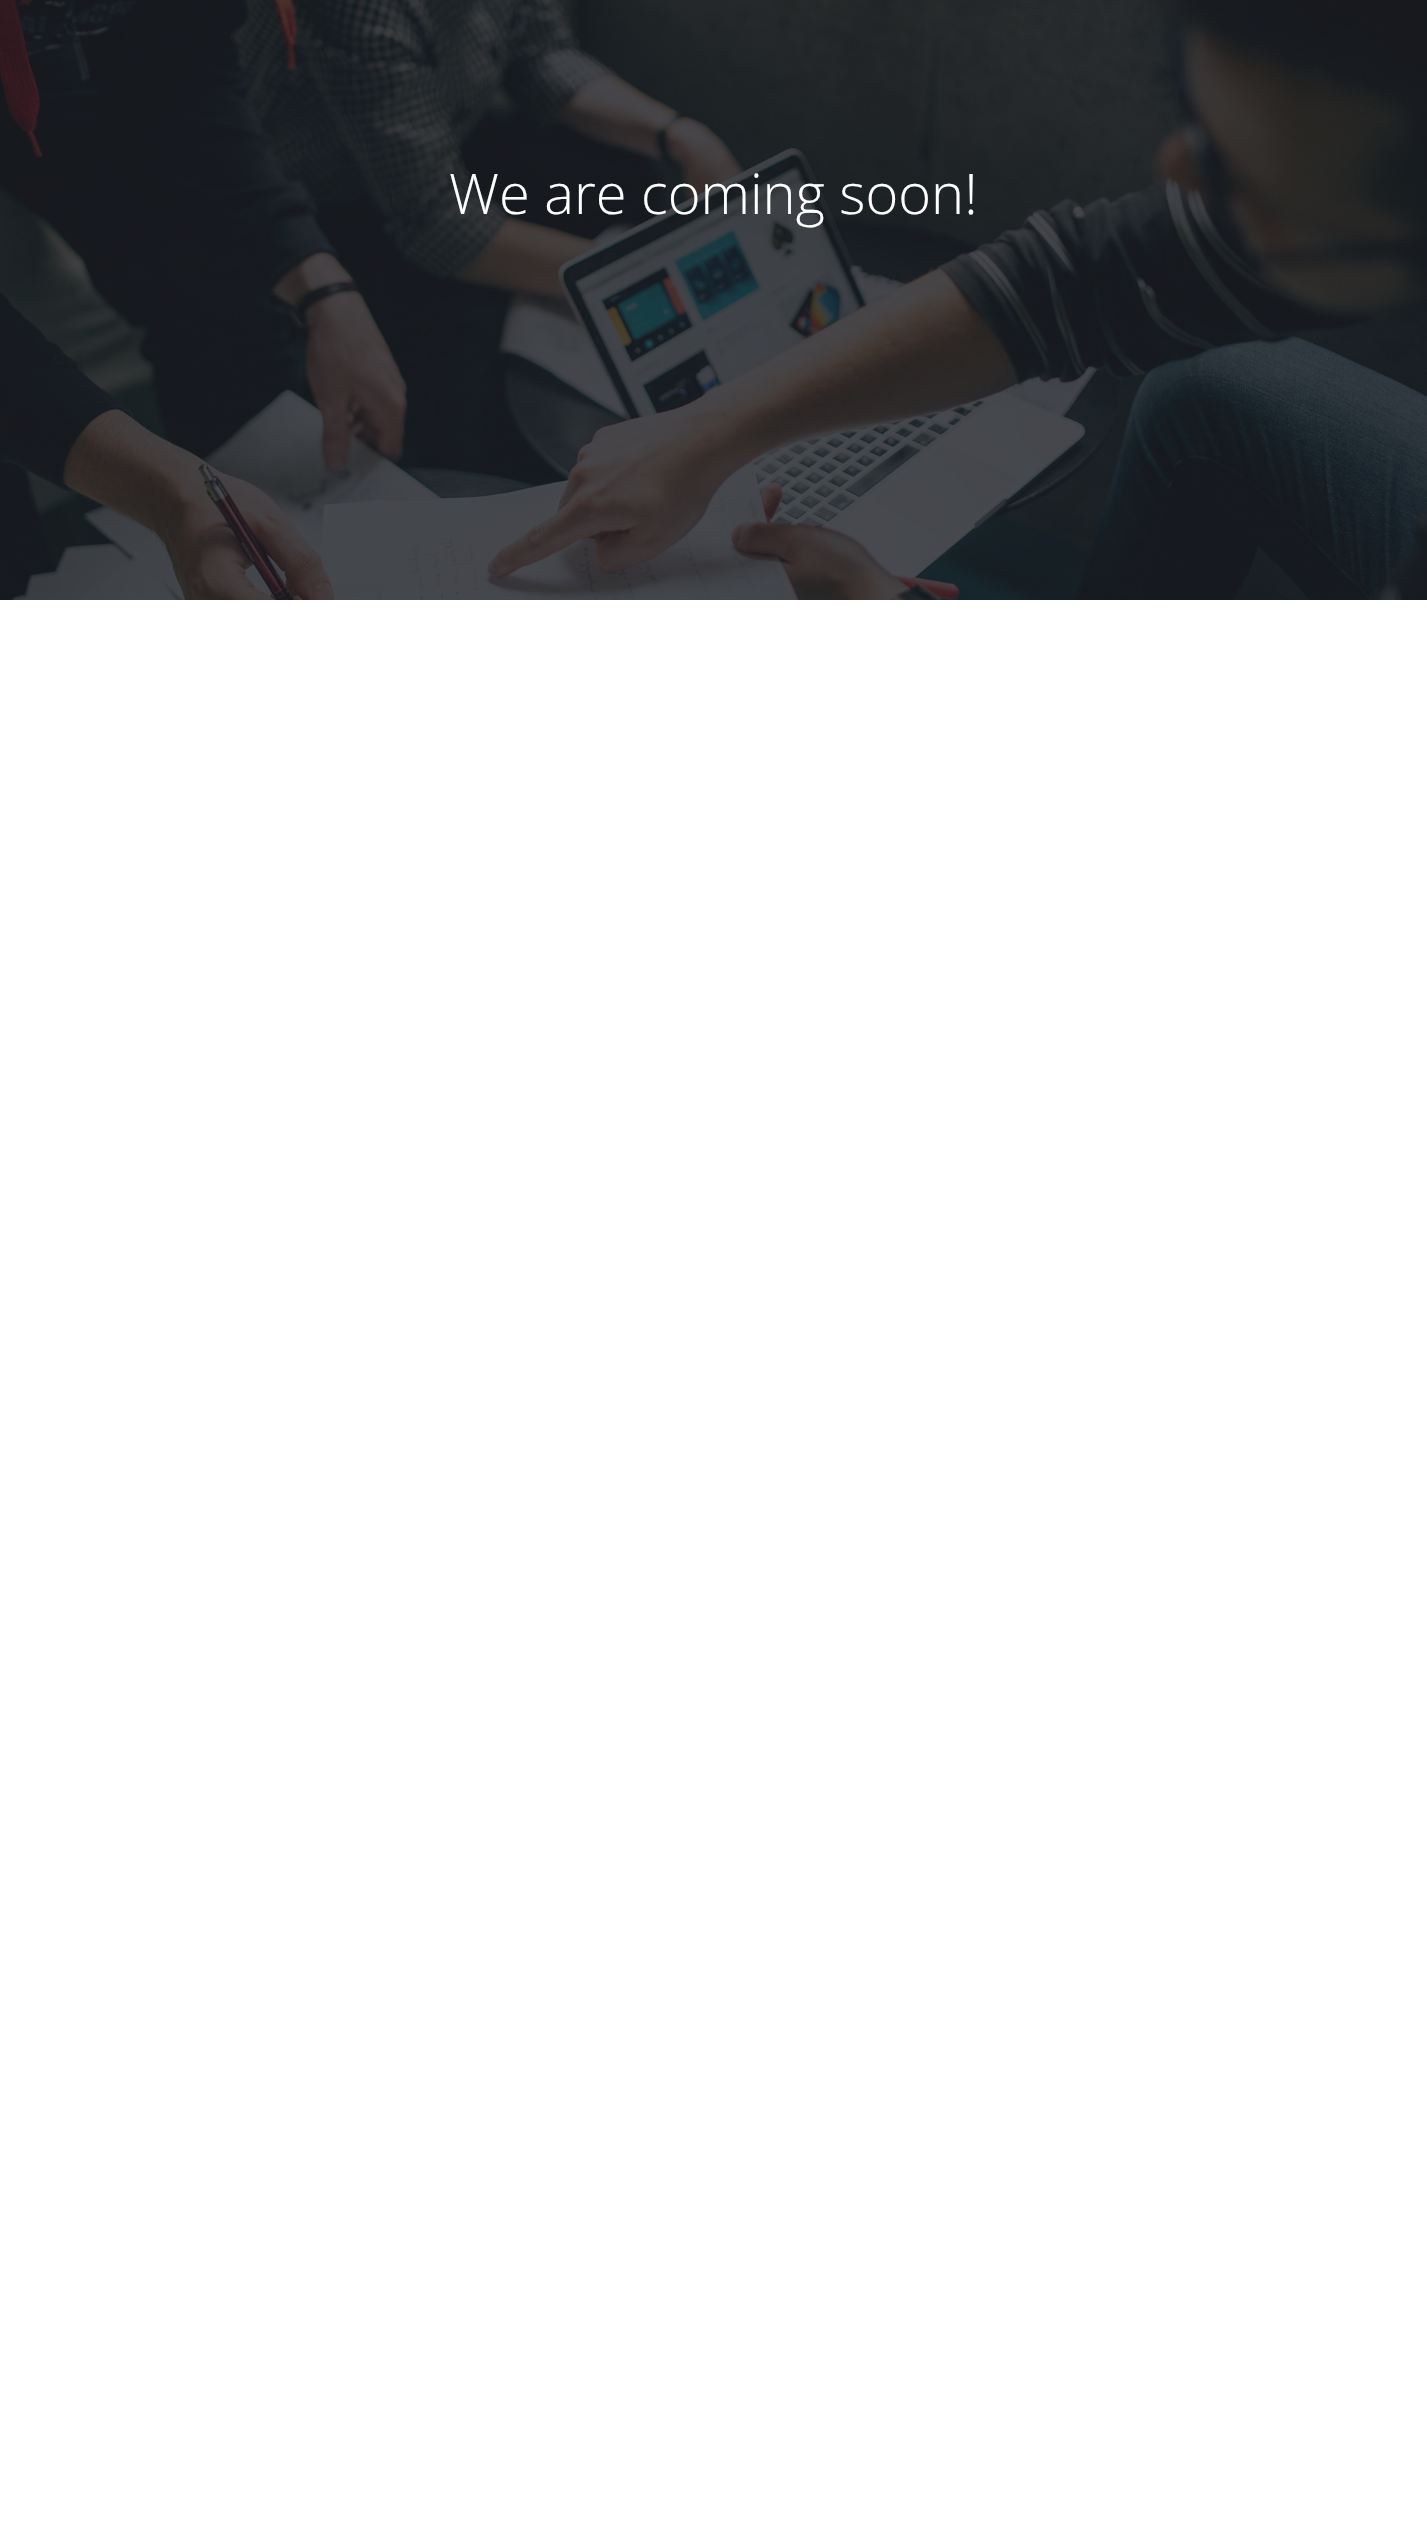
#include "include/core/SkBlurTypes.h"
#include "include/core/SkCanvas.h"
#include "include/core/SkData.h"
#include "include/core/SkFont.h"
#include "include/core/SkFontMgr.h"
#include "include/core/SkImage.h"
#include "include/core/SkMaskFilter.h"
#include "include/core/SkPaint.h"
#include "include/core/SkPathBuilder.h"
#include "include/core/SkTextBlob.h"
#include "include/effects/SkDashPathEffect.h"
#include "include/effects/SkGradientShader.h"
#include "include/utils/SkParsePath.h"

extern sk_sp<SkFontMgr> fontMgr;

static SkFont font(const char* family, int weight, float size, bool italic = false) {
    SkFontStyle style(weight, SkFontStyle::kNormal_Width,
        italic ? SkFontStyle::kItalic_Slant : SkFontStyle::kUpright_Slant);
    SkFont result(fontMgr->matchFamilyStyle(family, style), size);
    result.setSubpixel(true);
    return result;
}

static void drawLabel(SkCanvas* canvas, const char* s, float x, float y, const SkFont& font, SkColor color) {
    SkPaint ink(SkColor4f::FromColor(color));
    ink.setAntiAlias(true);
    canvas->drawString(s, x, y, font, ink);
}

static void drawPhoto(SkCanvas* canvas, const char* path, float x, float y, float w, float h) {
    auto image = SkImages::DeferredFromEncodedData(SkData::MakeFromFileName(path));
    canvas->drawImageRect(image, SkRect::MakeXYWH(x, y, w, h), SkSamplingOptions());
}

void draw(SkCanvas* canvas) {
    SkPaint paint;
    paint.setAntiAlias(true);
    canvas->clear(0xFFFFFFFF);
    drawPhoto(canvas, "assets/img1.png", 0, 0, 1427, 600);
    SkFont font1 = font("Open Sans", 300, 56);
    drawLabel(canvas, "We are coming soon!", 449, 214, font1, 0xFFFFFFFF);
}
